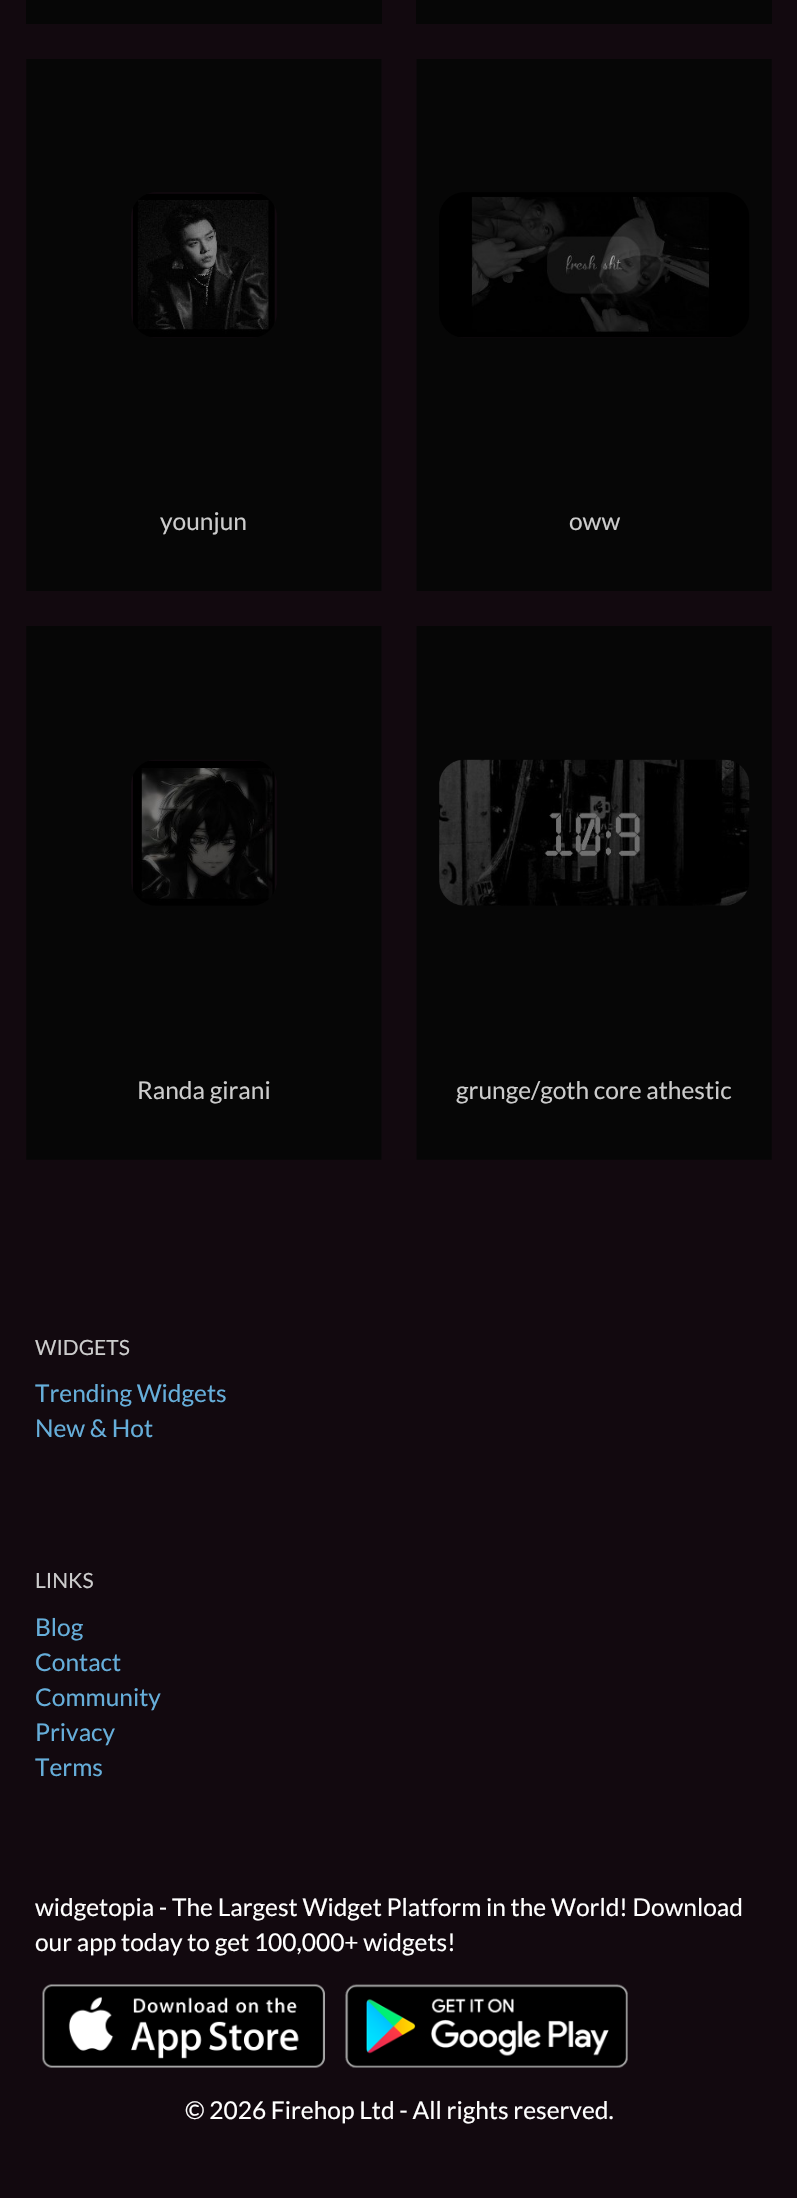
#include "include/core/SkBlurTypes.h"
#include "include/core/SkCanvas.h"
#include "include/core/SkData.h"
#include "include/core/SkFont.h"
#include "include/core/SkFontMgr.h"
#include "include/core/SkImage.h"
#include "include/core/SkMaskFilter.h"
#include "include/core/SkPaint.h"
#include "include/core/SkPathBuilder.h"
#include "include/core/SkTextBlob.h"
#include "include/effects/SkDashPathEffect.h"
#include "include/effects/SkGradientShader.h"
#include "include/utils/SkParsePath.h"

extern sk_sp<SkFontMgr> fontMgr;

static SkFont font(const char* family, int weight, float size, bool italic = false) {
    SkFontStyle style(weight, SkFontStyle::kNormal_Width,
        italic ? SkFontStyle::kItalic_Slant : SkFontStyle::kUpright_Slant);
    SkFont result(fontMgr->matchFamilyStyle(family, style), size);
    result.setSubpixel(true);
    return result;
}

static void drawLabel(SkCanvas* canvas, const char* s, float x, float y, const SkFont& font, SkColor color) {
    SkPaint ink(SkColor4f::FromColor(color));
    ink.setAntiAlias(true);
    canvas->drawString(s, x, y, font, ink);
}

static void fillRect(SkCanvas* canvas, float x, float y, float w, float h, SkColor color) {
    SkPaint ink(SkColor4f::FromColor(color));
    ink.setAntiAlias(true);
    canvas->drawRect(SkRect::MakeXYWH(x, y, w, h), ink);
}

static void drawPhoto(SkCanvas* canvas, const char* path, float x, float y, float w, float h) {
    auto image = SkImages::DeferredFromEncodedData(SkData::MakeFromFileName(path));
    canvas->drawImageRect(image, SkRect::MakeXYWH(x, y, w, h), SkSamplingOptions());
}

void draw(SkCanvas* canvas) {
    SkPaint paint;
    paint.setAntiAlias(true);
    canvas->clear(0xFF12090F);
    fillRect(canvas, 26, 0, 356, 24, 0xFF060606);
    fillRect(canvas, 416, 0, 356, 24, 0xFF060606);
    drawPhoto(canvas, "assets/img2.png", 133, 193, 142, 145);
    drawPhoto(canvas, "assets/img1.png", 26, 59, 356, 532);
    SkFont font1 = font("Lato", 400, 24.5f);
    drawLabel(canvas, "younjun", 160, 530, font1, 0xFFCCCCCC);
    drawPhoto(canvas, "assets/img4.png", 439, 192, 311, 146);
    drawPhoto(canvas, "assets/img3.png", 416, 59, 356, 532);
    drawLabel(canvas, "oww", 569, 530, font1, 0xFFCCCCCC);
    drawPhoto(canvas, "assets/img6.png", 133, 760, 142, 146);
    drawPhoto(canvas, "assets/img5.png", 26, 626, 356, 534);
    drawLabel(canvas, "Randa girani", 137, 1099, font1, 0xFFCCCCCC);
    drawPhoto(canvas, "assets/img8.png", 439, 759, 311, 147);
    drawPhoto(canvas, "assets/img7.png", 416, 626, 356, 534);
    drawLabel(canvas, "grunge/goth core athestic", 456, 1099, font1, 0xFFCCCCCC);
    SkFont font2 = font("Lato", 400, 21);
    drawLabel(canvas, "WIDGETS", 35, 1355, font2, 0xFFCCCCCC);
    drawLabel(canvas, "Trending Widgets", 35, 1402, font1, 0xFF66AEDA);
    drawLabel(canvas, "New & Hot", 35, 1437, font1, 0xFF66AEDA);
    drawLabel(canvas, "LINKS", 35, 1588, font2, 0xFFCCCCCC);
    drawLabel(canvas, "Blog", 35, 1636, font1, 0xFF66AEDA);
    drawLabel(canvas, "Contact", 35, 1671, font1, 0xFF66AEDA);
    drawLabel(canvas, "Community", 35, 1706, font1, 0xFF66AEDA);
    drawLabel(canvas, "Privacy", 35, 1741, font1, 0xFF66AEDA);
    drawLabel(canvas, "Terms", 35, 1776, font1, 0xFF66AEDA);
    drawLabel(canvas, "widgetopia - The Largest Widget Platform in the World! Download", 35, 1916, font1, 0xFFFFFFFF);
    drawLabel(canvas, "our app today to get 100,000+ widgets!", 35, 1951, font1, 0xFFFFFFFF);
    drawPhoto(canvas, "assets/img9.png", 42, 1984, 283, 84);
    drawPhoto(canvas, "assets/img10.png", 345, 1984, 283, 84);
    drawLabel(canvas, "© 2026 Firehop Ltd - All rights reserved.", 185, 2119, font1, 0xFFFFFFFF);
}
